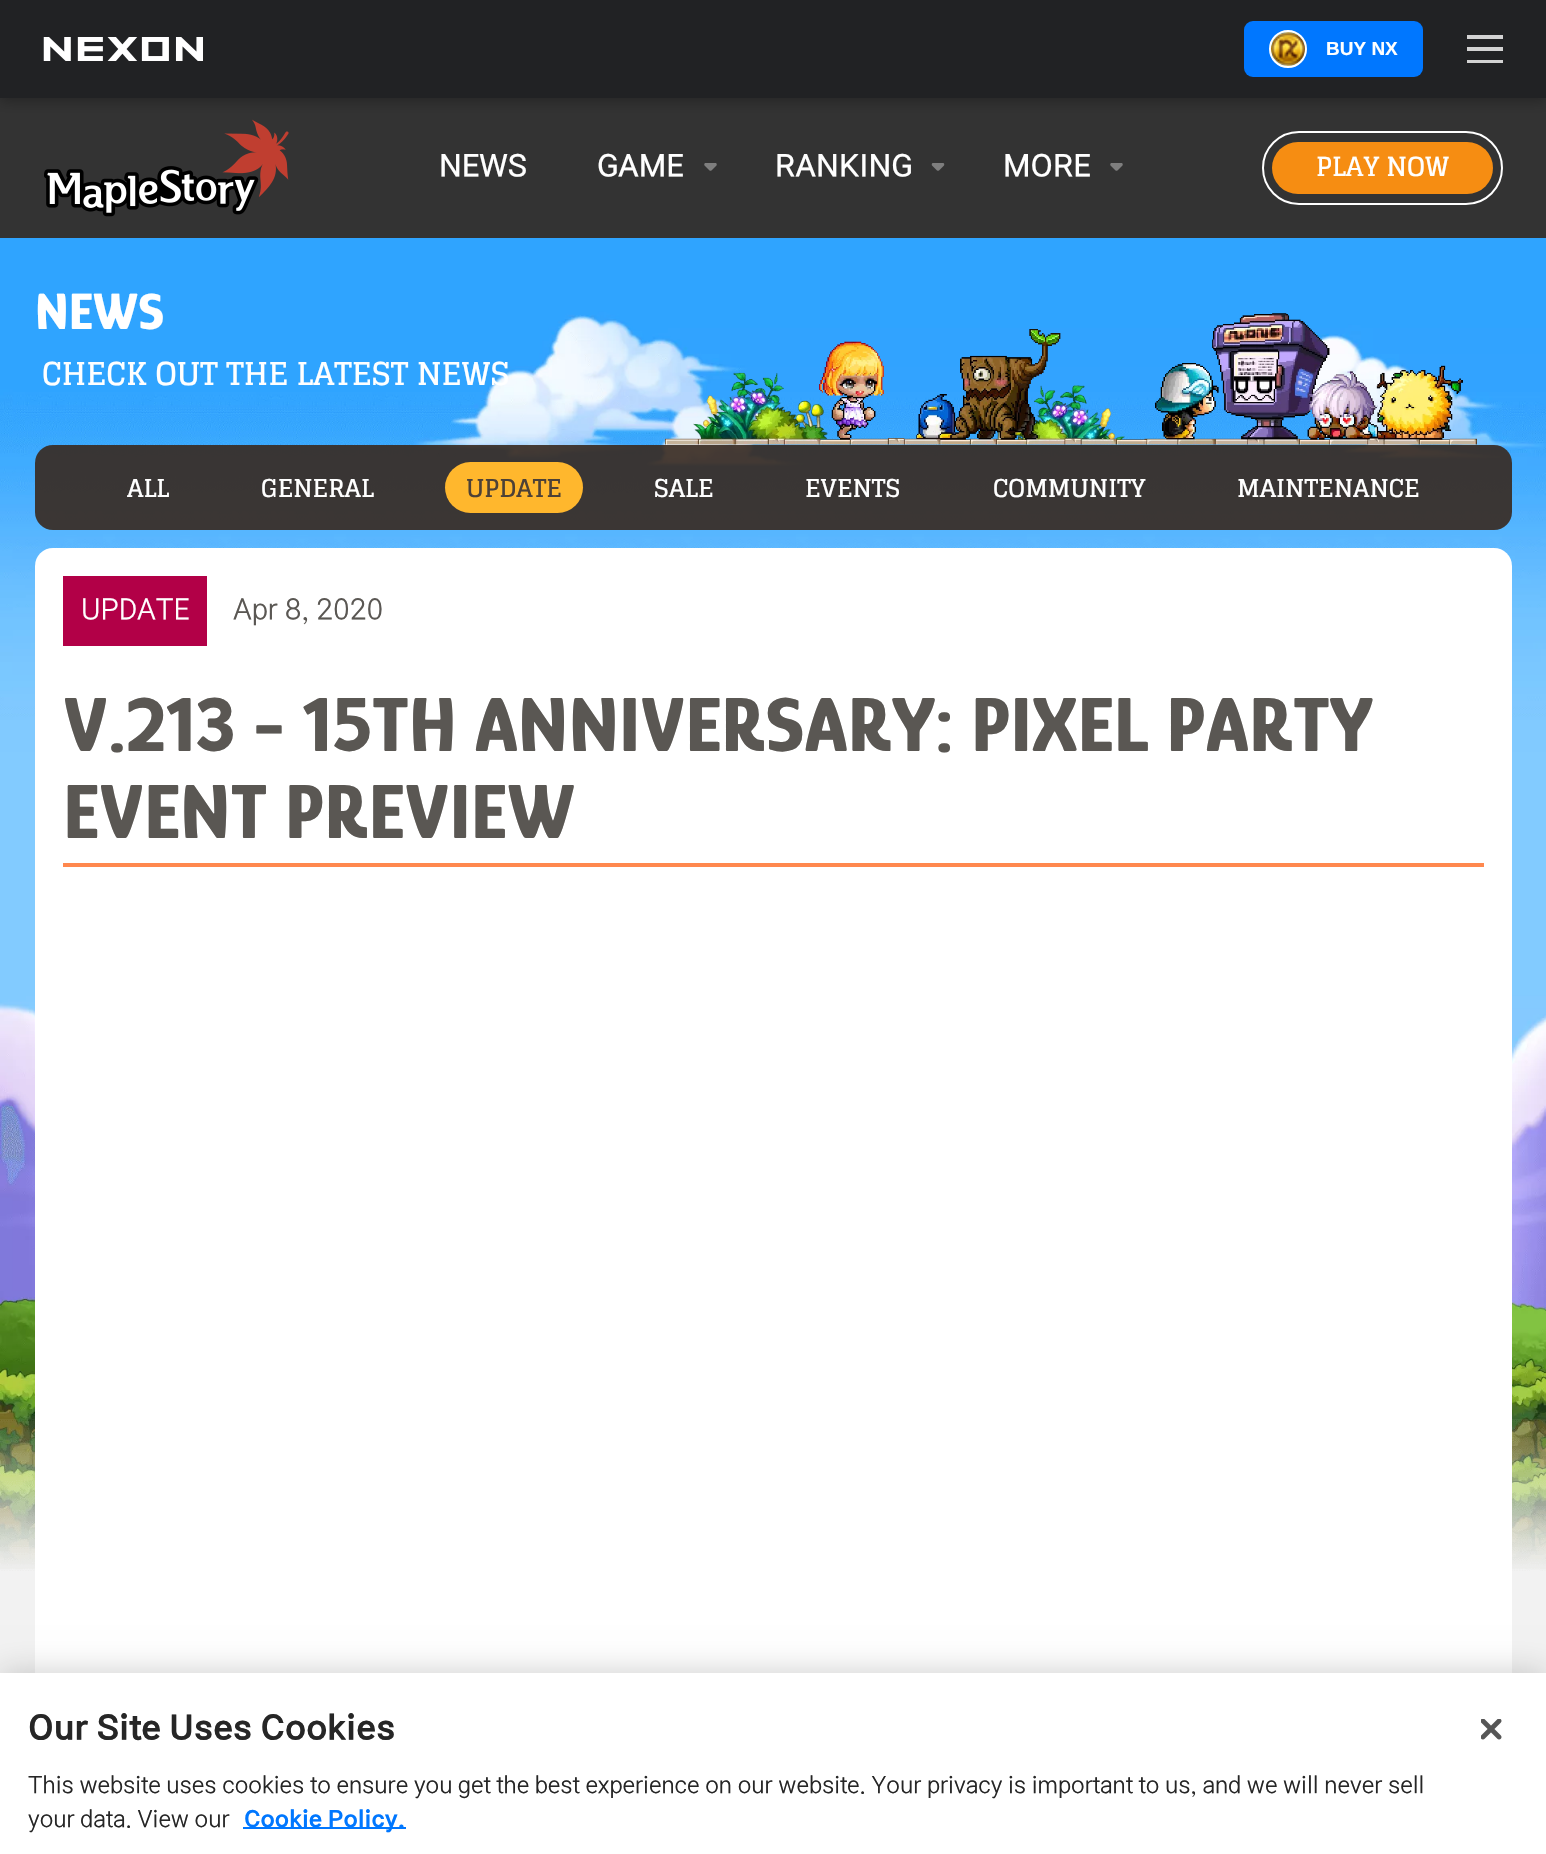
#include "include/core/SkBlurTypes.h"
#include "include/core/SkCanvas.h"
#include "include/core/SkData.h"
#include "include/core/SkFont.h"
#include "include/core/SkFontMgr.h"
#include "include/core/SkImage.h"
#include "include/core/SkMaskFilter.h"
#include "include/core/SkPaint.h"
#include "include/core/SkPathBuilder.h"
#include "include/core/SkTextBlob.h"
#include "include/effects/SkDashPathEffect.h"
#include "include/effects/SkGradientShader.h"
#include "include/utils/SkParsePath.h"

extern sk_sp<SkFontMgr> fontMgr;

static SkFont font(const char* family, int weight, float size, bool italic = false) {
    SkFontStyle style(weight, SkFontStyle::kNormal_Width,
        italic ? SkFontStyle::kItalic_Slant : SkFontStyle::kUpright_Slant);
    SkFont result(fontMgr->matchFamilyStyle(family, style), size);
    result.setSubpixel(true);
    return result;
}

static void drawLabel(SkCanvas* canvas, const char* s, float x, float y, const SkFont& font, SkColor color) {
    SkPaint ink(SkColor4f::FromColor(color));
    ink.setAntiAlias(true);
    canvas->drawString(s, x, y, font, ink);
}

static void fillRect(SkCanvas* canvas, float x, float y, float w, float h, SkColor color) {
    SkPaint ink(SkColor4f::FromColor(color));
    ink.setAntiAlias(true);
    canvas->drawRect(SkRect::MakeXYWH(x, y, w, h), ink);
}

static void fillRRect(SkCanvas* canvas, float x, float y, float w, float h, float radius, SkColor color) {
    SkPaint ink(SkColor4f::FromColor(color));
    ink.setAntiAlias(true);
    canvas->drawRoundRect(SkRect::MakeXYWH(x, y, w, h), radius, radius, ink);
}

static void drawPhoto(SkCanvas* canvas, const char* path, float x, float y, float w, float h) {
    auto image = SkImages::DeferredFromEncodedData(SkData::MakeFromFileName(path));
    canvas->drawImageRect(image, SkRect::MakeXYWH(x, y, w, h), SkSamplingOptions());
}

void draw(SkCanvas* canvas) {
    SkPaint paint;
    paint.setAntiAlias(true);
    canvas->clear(0xFFF2F2F2);
    fillRect(canvas, 0, 98, 1546, 140, 0xFF333333);
    drawPhoto(canvas, "assets/img3.png", 44, 119, 245, 98);
    paint.setColor(0x40000000);
    paint.setMaskFilter(SkMaskFilter::MakeBlur(kNormal_SkBlurStyle, 6));
    canvas->drawRect(SkRect::MakeXYWH(0, 4, 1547, 98), paint);
    paint.setMaskFilter(nullptr);
    fillRect(canvas, 0, 0, 1546, 98, 0xFF212224);
    drawPhoto(canvas, "assets/img1.png", 43, 37, 160, 24);
    fillRRect(canvas, 1244, 21, 179, 56, 9, 0xFF0077FF);
    drawPhoto(canvas, "assets/img2.png", 1270, 31, 36, 36);
    paint.setStroke(true);
    paint.setStrokeWidth(2);
    paint.setColor(0xFFFFFFFF);
    canvas->drawCircle(1288, 49, 18, paint);
    SkFont font1 = font("Liberation Sans", 700, 19);
    drawLabel(canvas, "BUY NX", 1326, 55, font1, 0xFFFFFFFF);
    fillRect(canvas, 1467, 35, 36, 4, 0xFFD3D3D3);
    fillRect(canvas, 1467, 47, 36, 4, 0xFFD3D3D3);
    fillRect(canvas, 1467, 60, 36, 3, 0xFFD3D3D3);
    SkFont font2 = font("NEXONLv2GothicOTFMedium", 500, 29.75f);
    drawLabel(canvas, "NEWS", 439, 175, font2, 0xFFFFFFFF);
    drawLabel(canvas, "GAME", 597, 175, font2, 0xFFFFFFFF);
    drawPhoto(canvas, "assets/img4.png", 704, 163, 13, 8);
    drawLabel(canvas, "RANKING", 775, 175, font2, 0xFFFFFFFF);
    drawPhoto(canvas, "assets/img5.png", 931, 163, 14, 8);
    drawLabel(canvas, "MORE", 1003, 175, font2, 0xFFFFFFFF);
    drawPhoto(canvas, "assets/img4.png", 1110, 163, 13, 8);
    canvas->drawRoundRect(SkRect::MakeXYWH(1263, 132, 239, 72), 36, 36, paint);
    fillRRect(canvas, 1272, 142, 221, 52, 26, 0xFFF68D12);
    SkFont font3 = font("Glegoo", 700, 26.25f);
    drawLabel(canvas, "PLAY NOW", 1316, 176, font3, 0xFFFFFFFF);
    drawPhoto(canvas, "assets/img6.png", 0, 238, 1546, 1333);
    SkFont font4 = font("Glory", 800, 52.5f);
    drawLabel(canvas, "NEWS", 35, 329, font4, 0xFFFFFFFF);
    SkFont font5 = font("Glegoo", 700, 31.5f);
    drawLabel(canvas, "CHECK OUT THE LATEST NEWS", 42, 385, font5, 0xFFFFFFFF);
    drawPhoto(canvas, "assets/img7.png", 665, 313, 812, 132);
    fillRRect(canvas, 35, 445, 1477, 85, 18, 0xE637281E);
    SkFont font6 = font("Glegoo", 700, 24.5f);
    drawLabel(canvas, "ALL", 127, 497, font6, 0xFFFFFFFF);
    drawLabel(canvas, "GENERAL", 261, 497, font6, 0xFFFFFFFF);
    fillRRect(canvas, 445, 462, 138, 51, 25.5f, 0xFFFFB72D);
    drawLabel(canvas, "UPDATE", 466, 497, font6, 0xFF4D4136);
    drawLabel(canvas, "SALE", 654, 497, font6, 0xFFFFFFFF);
    drawLabel(canvas, "EVENTS", 805, 497, font6, 0xFFFFFFFF);
    drawLabel(canvas, "COMMUNITY", 993, 497, font6, 0xFFFFFFFF);
    drawLabel(canvas, "MAINTENANCE", 1237, 497, font6, 0xFFFFFFFF);
    fillRRect(canvas, 35, 548, 1477, 1269, 18, 0xFFFFFFFF);
    fillRect(canvas, 63, 576, 144, 70, 0xFFB20047);
    SkFont font7 = font("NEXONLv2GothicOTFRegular", 400, 28);
    drawLabel(canvas, "UPDATE", 81, 618, font7, 0xFFFFFFFF);
    drawLabel(canvas, "Apr 8, 2020", 233, 618, font7, 0xFF5A5753);
    fillRect(canvas, 63, 863, 1421, 4, 0xFFFF884E);
    SkFont font8 = font("Glory", 800, 78.75f);
    drawLabel(canvas, "V.213 - 15TH ANNIVERSARY: PIXEL PARTY", 63, 751, font8, 0xFF5A5753);
    drawLabel(canvas, "EVENT PREVIEW", 63, 838, font8, 0xFF5A5753);
    paint.setStroke(false);
    paint.setColor(0x33000000);
    paint.setMaskFilter(SkMaskFilter::MakeBlur(kNormal_SkBlurStyle, 16));
    canvas->drawRect(SkRect::MakeXYWH(0, 1673, 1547, 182), paint);
    paint.setMaskFilter(nullptr);
    fillRect(canvas, 0, 1673, 1546, 181, 0xFFFFFFFF);
    SkFont font9 = font("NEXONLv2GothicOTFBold", 700, 33.6f);
    drawLabel(canvas, "Our Site Uses Cookies", 28, 1738, font9, 0xFF262626);
    SkFont font10 = font("NEXONLv2GothicOTFRegular", 400, 22.75f);
    drawLabel(canvas, "This website uses cookies to ensure you get the best experience on our website. Your privacy is important to us, and we will never sell", 28, 1792, font10, 0xFF262626);
    drawLabel(canvas, "your data. View our", 28, 1826, font10, 0xFF262626);
    fillRect(canvas, 243, 1827, 163, 2, 0xFF0077FF);
    SkFont font11 = font("NEXONLv2GothicOTFBold", 700, 22.75f);
    drawLabel(canvas, "Cookie Policy.", 244, 1826, font11, 0xFF0077FF);
    drawPhoto(canvas, "assets/img8.png", 1481, 1719, 21, 21);
}
